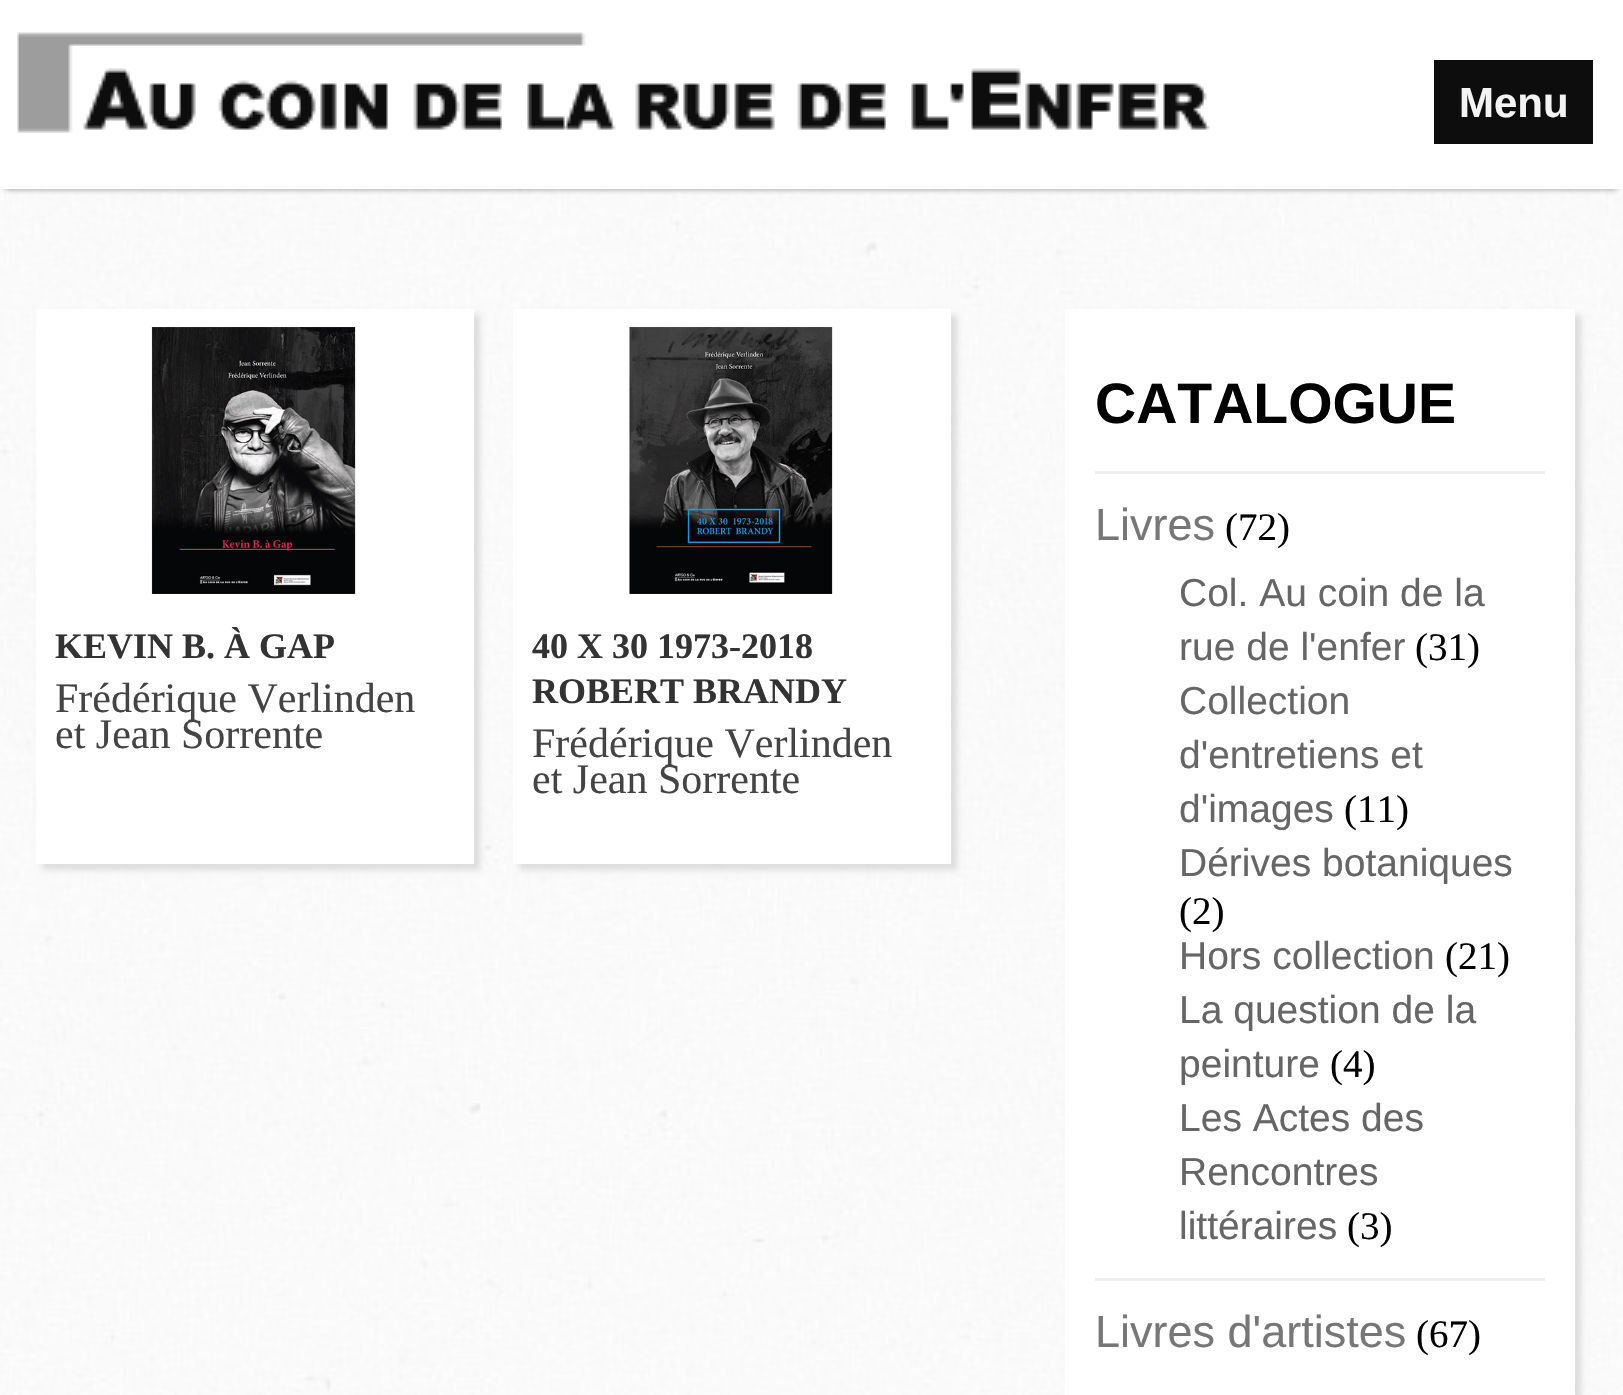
#include "include/core/SkBlurTypes.h"
#include "include/core/SkCanvas.h"
#include "include/core/SkData.h"
#include "include/core/SkFont.h"
#include "include/core/SkFontMgr.h"
#include "include/core/SkImage.h"
#include "include/core/SkMaskFilter.h"
#include "include/core/SkPaint.h"
#include "include/core/SkPathBuilder.h"
#include "include/core/SkTextBlob.h"
#include "include/effects/SkDashPathEffect.h"
#include "include/effects/SkGradientShader.h"
#include "include/utils/SkParsePath.h"

extern sk_sp<SkFontMgr> fontMgr;

static SkFont font(const char* family, int weight, float size, bool italic = false) {
    SkFontStyle style(weight, SkFontStyle::kNormal_Width,
        italic ? SkFontStyle::kItalic_Slant : SkFontStyle::kUpright_Slant);
    SkFont result(fontMgr->matchFamilyStyle(family, style), size);
    result.setSubpixel(true);
    return result;
}

static void drawLabel(SkCanvas* canvas, const char* s, float x, float y, const SkFont& font, SkColor color) {
    SkPaint ink(SkColor4f::FromColor(color));
    ink.setAntiAlias(true);
    canvas->drawString(s, x, y, font, ink);
}

static void fillRect(SkCanvas* canvas, float x, float y, float w, float h, SkColor color) {
    SkPaint ink(SkColor4f::FromColor(color));
    ink.setAntiAlias(true);
    canvas->drawRect(SkRect::MakeXYWH(x, y, w, h), ink);
}

static void drawPhoto(SkCanvas* canvas, const char* path, float x, float y, float w, float h) {
    auto image = SkImages::DeferredFromEncodedData(SkData::MakeFromFileName(path));
    canvas->drawImageRect(image, SkRect::MakeXYWH(x, y, w, h), SkSamplingOptions());
}

void draw(SkCanvas* canvas) {
    SkPaint paint;
    paint.setAntiAlias(true);
    canvas->clear(0xFFFFFFFF);
    drawPhoto(canvas, "assets/img1.png", 0, 0, 1623, 1395);
    canvas->save();
    canvas->clipRect(SkRect::MakeXYWH(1, 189, 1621, 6));
    paint.setColor(0xF2888888);
    paint.setMaskFilter(SkMaskFilter::MakeBlur(kNormal_SkBlurStyle, 3));
    canvas->drawRect(SkRect::MakeXYWH(6, 12, 1611, 177), paint);
    paint.setMaskFilter(nullptr);
    canvas->restore();
    fillRect(canvas, 0, 0, 1623, 189, 0xF2FFFFFF);
    drawPhoto(canvas, "assets/img2.png", 17, 32, 1193, 101);
    fillRect(canvas, 1434, 60, 159, 84, 0xFF0D0D0D);
    SkFont font1 = font("Liberation Sans", 700, 42);
    drawLabel(canvas, "Menu", 1459, 117, font1, 0xFFF3F3F3);
    paint.setColor(0xFFDDDDDD);
    paint.setMaskFilter(SkMaskFilter::MakeBlur(kNormal_SkBlurStyle, 3));
    canvas->drawRect(SkRect::MakeXYWH(42, 315, 438, 555), paint);
    paint.setMaskFilter(nullptr);
    fillRect(canvas, 36, 309, 438, 555, 0xFFFFFFFF);
    drawPhoto(canvas, "assets/img3.png", 151, 327, 205, 267);
    SkFont font2 = font("Liberation Serif", 700, 36);
    drawLabel(canvas, "KEVIN B. À GAP", 55, 658, font2, 0xFF333333);
    SkFont font3 = font("Liberation Serif", 400, 42);
    drawLabel(canvas, "Frédérique Verlinden", 55, 712, font3, 0xFF444444);
    drawLabel(canvas, "et Jean Sorrente", 55, 748, font3, 0xFF444444);
    paint.setMaskFilter(SkMaskFilter::MakeBlur(kNormal_SkBlurStyle, 3));
    canvas->drawRect(SkRect::MakeXYWH(519, 315, 438, 555), paint);
    paint.setMaskFilter(nullptr);
    fillRect(canvas, 513, 309, 438, 555, 0xFFFFFFFF);
    drawPhoto(canvas, "assets/img4.png", 629, 327, 204, 267);
    drawLabel(canvas, "40 X 30 1973-2018", 532, 658, font2, 0xFF333333);
    drawLabel(canvas, "ROBERT BRANDY", 532, 703, font2, 0xFF333333);
    drawLabel(canvas, "Frédérique Verlinden", 532, 757, font3, 0xFF444444);
    drawLabel(canvas, "et Jean Sorrente", 532, 793, font3, 0xFF444444);
    paint.setMaskFilter(SkMaskFilter::MakeBlur(kNormal_SkBlurStyle, 3));
    canvas->drawRect(SkRect::MakeXYWH(1071, 315, 510, 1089), paint);
    paint.setMaskFilter(nullptr);
    fillRect(canvas, 1065, 309, 510, 1086, 0xFFFFFFFF);
    SkFont font4 = font("Liberation Sans", 700, 57);
    drawLabel(canvas, "CATALOGUE", 1095, 423, font4, 0xFF000000);
    fillRect(canvas, 1095, 471, 450, 3, 0xFFEEEEEE);
    fillRect(canvas, 1095, 1278, 450, 3, 0xFFEEEEEE);
    SkFont font5 = font("Liberation Sans", 400, 45);
    drawLabel(canvas, "Livres", 1095, 540, font5, 0xFF777777);
    SkFont font6 = font("Liberation Serif", 400, 39);
    drawLabel(canvas, "(72)", 1225, 540, font6, 0xFF000000);
    SkFont font7 = font("Liberation Sans", 400, 39);
    drawLabel(canvas, "Col. Au coin de la", 1179, 606, font7, 0xFF666666);
    drawLabel(canvas, "rue de l'enfer", 1179, 660, font7, 0xFF666666);
    drawLabel(canvas, "(31)", 1415, 660, font6, 0xFF000000);
    drawLabel(canvas, "Collection", 1179, 714, font7, 0xFF666666);
    drawLabel(canvas, "d'entretiens et", 1179, 768, font7, 0xFF666666);
    drawLabel(canvas, "d'images", 1179, 822, font7, 0xFF666666);
    drawLabel(canvas, "(11)", 1344, 822, font6, 0xFF000000);
    drawLabel(canvas, "Dérives botaniques", 1179, 876, font7, 0xFF666666);
    drawLabel(canvas, "(2)", 1179, 924, font6, 0xFF000000);
    drawLabel(canvas, "Hors collection", 1179, 969, font7, 0xFF666666);
    drawLabel(canvas, "(21)", 1445, 969, font6, 0xFF000000);
    drawLabel(canvas, "La question de la", 1179, 1023, font7, 0xFF666666);
    drawLabel(canvas, "peinture", 1179, 1077, font7, 0xFF666666);
    drawLabel(canvas, "(4)", 1330, 1077, font6, 0xFF000000);
    drawLabel(canvas, "Les Actes des", 1179, 1131, font7, 0xFF666666);
    drawLabel(canvas, "Rencontres", 1179, 1185, font7, 0xFF666666);
    drawLabel(canvas, "littéraires", 1179, 1239, font7, 0xFF666666);
    drawLabel(canvas, "(3)", 1347, 1239, font6, 0xFF000000);
    drawLabel(canvas, "Livres d'artistes", 1095, 1347, font5, 0xFF777777);
    drawLabel(canvas, "(67)", 1416, 1347, font6, 0xFF000000);
}
